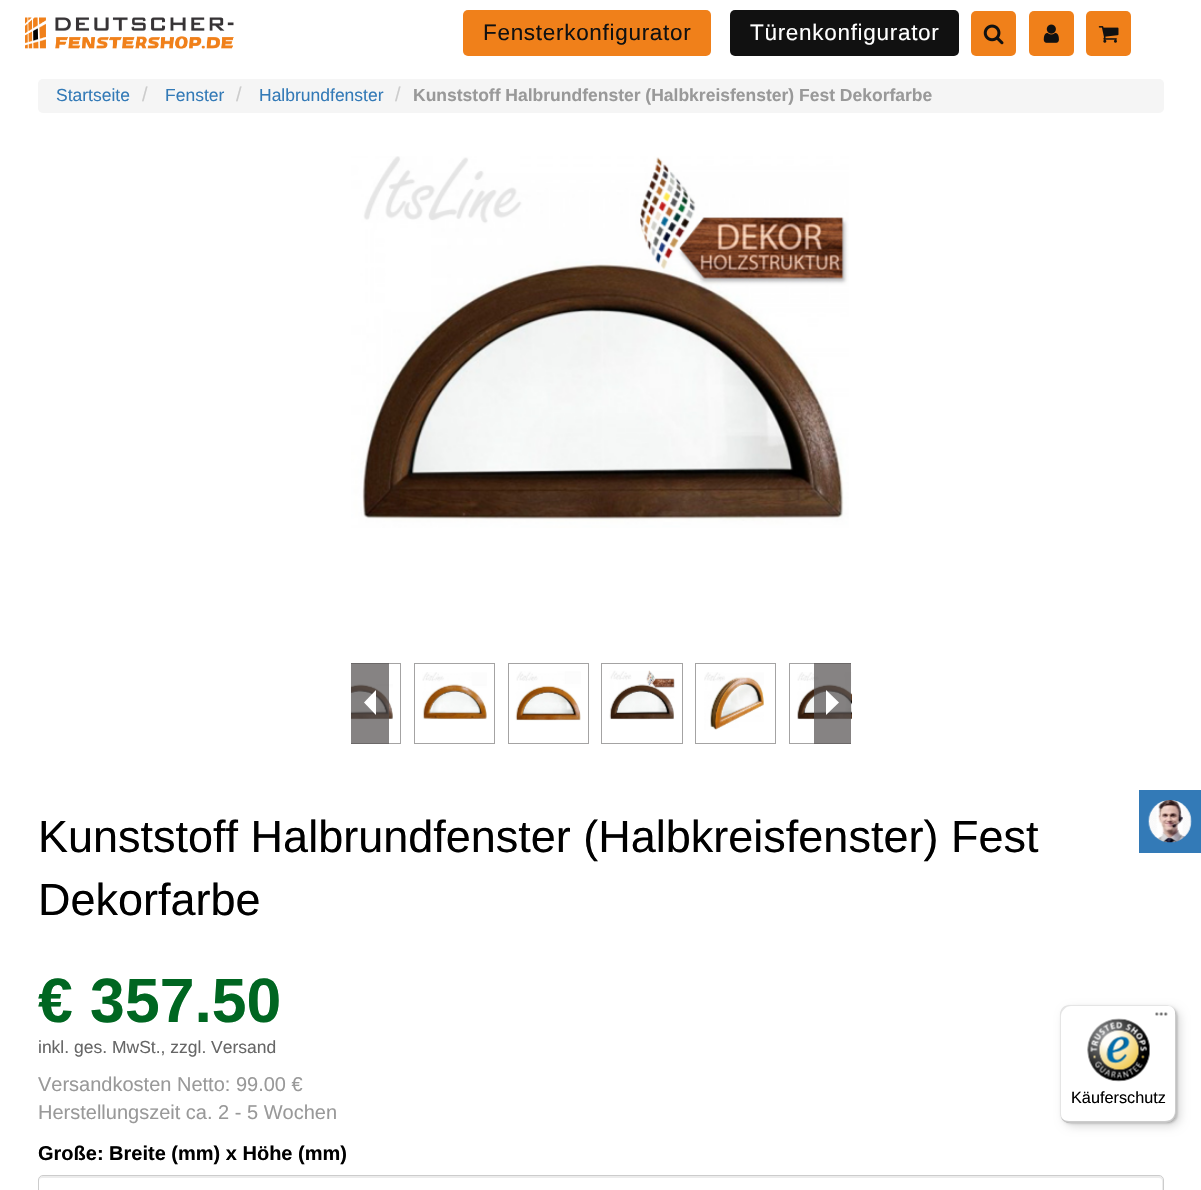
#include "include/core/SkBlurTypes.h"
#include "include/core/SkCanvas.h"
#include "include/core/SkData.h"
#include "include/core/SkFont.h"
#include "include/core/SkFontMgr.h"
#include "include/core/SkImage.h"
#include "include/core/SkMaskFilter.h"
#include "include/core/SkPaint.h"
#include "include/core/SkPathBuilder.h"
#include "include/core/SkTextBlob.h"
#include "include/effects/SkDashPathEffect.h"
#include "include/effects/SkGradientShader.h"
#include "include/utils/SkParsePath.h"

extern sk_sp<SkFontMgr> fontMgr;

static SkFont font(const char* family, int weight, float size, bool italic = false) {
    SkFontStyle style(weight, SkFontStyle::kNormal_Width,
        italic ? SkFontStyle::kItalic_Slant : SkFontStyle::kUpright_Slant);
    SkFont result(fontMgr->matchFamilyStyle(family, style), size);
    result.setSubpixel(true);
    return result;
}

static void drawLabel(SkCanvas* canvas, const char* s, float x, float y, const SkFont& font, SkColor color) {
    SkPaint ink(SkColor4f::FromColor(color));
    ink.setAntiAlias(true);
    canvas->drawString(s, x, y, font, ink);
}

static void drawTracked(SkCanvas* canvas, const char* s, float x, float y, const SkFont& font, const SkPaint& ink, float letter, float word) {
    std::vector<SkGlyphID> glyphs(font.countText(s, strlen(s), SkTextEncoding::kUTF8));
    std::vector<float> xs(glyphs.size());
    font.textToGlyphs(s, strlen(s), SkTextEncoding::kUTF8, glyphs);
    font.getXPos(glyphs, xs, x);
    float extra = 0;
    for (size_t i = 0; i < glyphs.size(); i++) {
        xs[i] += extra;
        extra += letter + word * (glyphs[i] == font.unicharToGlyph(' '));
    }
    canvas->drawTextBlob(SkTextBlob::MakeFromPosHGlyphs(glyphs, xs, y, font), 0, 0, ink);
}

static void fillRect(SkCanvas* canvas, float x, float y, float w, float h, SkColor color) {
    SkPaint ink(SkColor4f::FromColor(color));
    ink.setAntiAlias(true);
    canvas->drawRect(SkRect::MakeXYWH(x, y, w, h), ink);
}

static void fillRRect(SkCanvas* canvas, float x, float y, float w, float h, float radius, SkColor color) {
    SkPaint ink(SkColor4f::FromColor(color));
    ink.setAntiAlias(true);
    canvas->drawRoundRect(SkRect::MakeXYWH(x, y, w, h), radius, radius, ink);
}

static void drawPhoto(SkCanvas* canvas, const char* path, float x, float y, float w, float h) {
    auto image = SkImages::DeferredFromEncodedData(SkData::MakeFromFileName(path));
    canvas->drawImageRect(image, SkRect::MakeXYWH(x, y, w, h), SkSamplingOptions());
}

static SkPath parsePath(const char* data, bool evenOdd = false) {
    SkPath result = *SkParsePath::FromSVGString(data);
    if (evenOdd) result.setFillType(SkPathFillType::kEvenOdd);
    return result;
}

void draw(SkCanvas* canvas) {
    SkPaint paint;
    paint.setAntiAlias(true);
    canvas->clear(0xFFFFFFFF);
    drawPhoto(canvas, "assets/img1.png", 25, 17, 209, 32);
    fillRRect(canvas, 463, 10, 248, 46, 5, 0xFFF0801A);
    SkFont font1 = font("Liberation Sans", 400, 22.5f);
    paint.setColor(0xFF111111);
    drawTracked(canvas, "Fensterkonfigurator", 483, 40, font1, paint, 0.7f, 0);
    fillRRect(canvas, 730, 10, 229, 46, 5, 0xFF111111);
    paint.setColor(0xFFFFFFFF);
    drawTracked(canvas, "Türenkonfigurator", 750, 40, font1, paint, 0.7f, 0);
    fillRRect(canvas, 971, 11, 45, 45, 5, 0xFFF0801A);
    drawPhoto(canvas, "assets/img2.png", 983, 24, 21, 21);
    fillRRect(canvas, 1029, 11, 45, 45, 5, 0xFFF0801A);
    drawPhoto(canvas, "assets/img3.png", 1043, 24, 16, 19);
    fillRRect(canvas, 1086, 11, 45, 45, 5, 0xFFF0801A);
    drawPhoto(canvas, "assets/img4.png", 1098, 26, 21, 17);
    fillRRect(canvas, 38, 79, 1126, 34, 5, 0xFFF5F5F5);
    SkFont font2 = font("Liberation Sans", 400, 17.5f);
    drawLabel(canvas, "Startseite", 56, 101, font2, 0xFF337AB7);
    SkFont font3 = font("Liberation Sans", 400, 20);
    drawLabel(canvas, "/", 142, 101, font3, 0xFFCCCCCC);
    drawLabel(canvas, "Fenster", 165, 101, font2, 0xFF337AB7);
    drawLabel(canvas, "/", 236, 101, font3, 0xFFCCCCCC);
    drawLabel(canvas, "Halbrundfenster", 259, 101, font2, 0xFF337AB7);
    drawLabel(canvas, "/", 395, 101, font3, 0xFFCCCCCC);
    SkFont font4 = font("Liberation Sans", 700, 17.5f);
    drawLabel(canvas, "Kunststoff Halbrundfenster (Halbkreisfenster) Fest Dekorfarbe", 413, 101, font4, 0xFF999999);
    drawPhoto(canvas, "assets/img5.png", 351, 156, 498, 372);
    canvas->save();
    canvas->clipRect(SkRect::MakeXYWH(351, 663, 500, 81));
    paint.setStroke(true);
    paint.setStrokeWidth(1);
    paint.setColor(0xFFA4A3A3);
    canvas->drawRect(SkRect::MakeXYWH(320.5f, 663.5f, 80, 80), paint);
    canvas->restore();
    drawPhoto(canvas, "assets/img6.png", 351, 684, 42, 36);
    canvas->drawRect(SkRect::MakeXYWH(414.5f, 663.5f, 80, 80), paint);
    drawPhoto(canvas, "assets/img7.png", 422, 672, 65, 48);
    canvas->drawRect(SkRect::MakeXYWH(508.5f, 663.5f, 80, 80), paint);
    drawPhoto(canvas, "assets/img8.png", 515, 671, 66, 50);
    canvas->drawRect(SkRect::MakeXYWH(601.5f, 663.5f, 81, 80), paint);
    drawPhoto(canvas, "assets/img9.png", 609, 670, 66, 50);
    canvas->drawRect(SkRect::MakeXYWH(695.5f, 663.5f, 80, 80), paint);
    drawPhoto(canvas, "assets/img10.png", 704, 672, 60, 58);
    canvas->save();
    canvas->clipRect(SkRect::MakeXYWH(351, 663, 500, 81));
    canvas->drawRect(SkRect::MakeXYWH(789.5f, 663.5f, 80, 80), paint);
    canvas->restore();
    drawPhoto(canvas, "assets/img11.png", 797, 672, 55, 48);
    fillRect(canvas, 351, 663, 38, 81, 0xB3524F4F);
    paint.setStroke(false);
    paint.setColor(0xFFFFFFFF);
    canvas->drawPath(parsePath("M376 690V715L364 702.5Z"), paint);
    fillRect(canvas, 814, 663, 37, 81, 0xB3524F4F);
    canvas->drawPath(parsePath("M826 715V690L839 702.5Z"), paint);
    SkFont font5 = font("Liberation Sans", 400, 45);
    drawLabel(canvas, "Kunststoff Halbrundfenster (Halbkreisfenster) Fest", 38, 852, font5, 0xFF000000);
    drawLabel(canvas, "Dekorfarbe", 38, 915, font5, 0xFF000000);
    SkFont font6 = font("Liberation Sans", 700, 62.5f);
    drawLabel(canvas, "€ 357.50", 38, 1022, font6, 0xFF006621);
    drawLabel(canvas, "inkl. ges. MwSt., zzgl. Versand", 38, 1053, font2, 0xFF666666);
    drawLabel(canvas, "Versandkosten Netto: 99.00 €", 38, 1091, font3, 0xFF999999);
    drawLabel(canvas, "Herstellungszeit ca. 2 - 5 Wochen", 38, 1119, font3, 0xFF999999);
    SkFont font7 = font("Liberation Sans", 700, 20);
    drawLabel(canvas, "Große: Breite (mm) x Höhe (mm)", 38, 1160, font7, 0xFF000000);
    paint.setColor(0xFFECECEC);
    canvas->drawPath(parsePath("M42 1178H1159C1161 1178 1162 1179 1162 1181V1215C1163 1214 1163 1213 1163 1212V1180C1163 1178 1161 1176 1159 1176H43C41 1176 39 1178 39 1180V1181C39 1179 40 1178 42 1178Z"), paint);
    paint.setStroke(true);
    paint.setColor(0xFFCCCCCC);
    canvas->drawRoundRect(SkRect::MakeXYWH(38.5f, 1175.5f, 1125, 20), 4.5f, 4.5f, paint);
    fillRect(canvas, 1139, 790, 62, 63, 0xFF337AB7);
    drawPhoto(canvas, "assets/img12.png", 1148, 800, 44, 43);
    paint.setStroke(false);
    paint.setColor(0x26000000);
    paint.setMaskFilter(SkMaskFilter::MakeBlur(kNormal_SkBlurStyle, 5));
    canvas->drawRoundRect(SkRect::MakeXYWH(1064, 1009, 116, 117), 10, 10, paint);
    paint.setMaskFilter(nullptr);
    paint.setMaskFilter(SkMaskFilter::MakeBlur(kNormal_SkBlurStyle, 1));
    canvas->drawRoundRect(SkRect::MakeXYWH(1061, 1006, 117, 118), 10, 10, paint);
    paint.setMaskFilter(nullptr);
    fillRRect(canvas, 1060, 1005, 116, 118, 10, 0xFFFFFFFF);
    paint.setColor(0x1A000000);
    canvas->drawPath(parsePath("M1071 1006H1168C1169 1006 1171 1006 1172 1007C1170 1006 1168 1005 1166 1005H1070C1064 1005 1060 1009 1060 1015V1113C1060 1117 1062 1120 1065 1122C1063 1120 1061 1117 1061 1114V1016C1061 1011 1066 1006 1071 1006Z"), paint);
    paint.setColor(0x33000000);
    canvas->drawPath(parsePath("M1061 1117C1063 1121 1066 1123 1070 1123H1166C1172 1123 1176 1119 1176 1113V1015C1176 1013 1175 1010 1174 1009C1175 1010 1175 1012 1175 1014V1111C1175 1117 1171 1121 1165 1121H1069C1066 1121 1063 1120 1061 1117Z"), paint);
    drawPhoto(canvas, "assets/img13.png", 1155, 1012, 13, 4);
    paint.setColor(0x33323232);
    canvas->drawPath(parsePath("M1061 1118C1063 1121 1066 1123 1070 1123H1166C1172 1123 1176 1119 1176 1113V1112C1176 1117 1171 1122 1166 1122H1069C1066 1122 1063 1120 1061 1118Z"), paint);
    paint.setColor(0x4DFFFFFF);
    canvas->drawPath(parsePath("M1061 1118C1063 1121 1066 1123 1070 1123H1166C1172 1123 1176 1119 1176 1113V1112C1176 1117 1171 1122 1166 1122H1069C1066 1122 1063 1120 1061 1118Z"), paint);
    drawPhoto(canvas, "assets/img14.png", 1087, 1018, 63, 64);
    SkFont font8 = font("Liberation Sans", 400, 16.25f);
    drawLabel(canvas, "Käuferschutz", 1071, 1103, font8, 0xFF000000);
}
